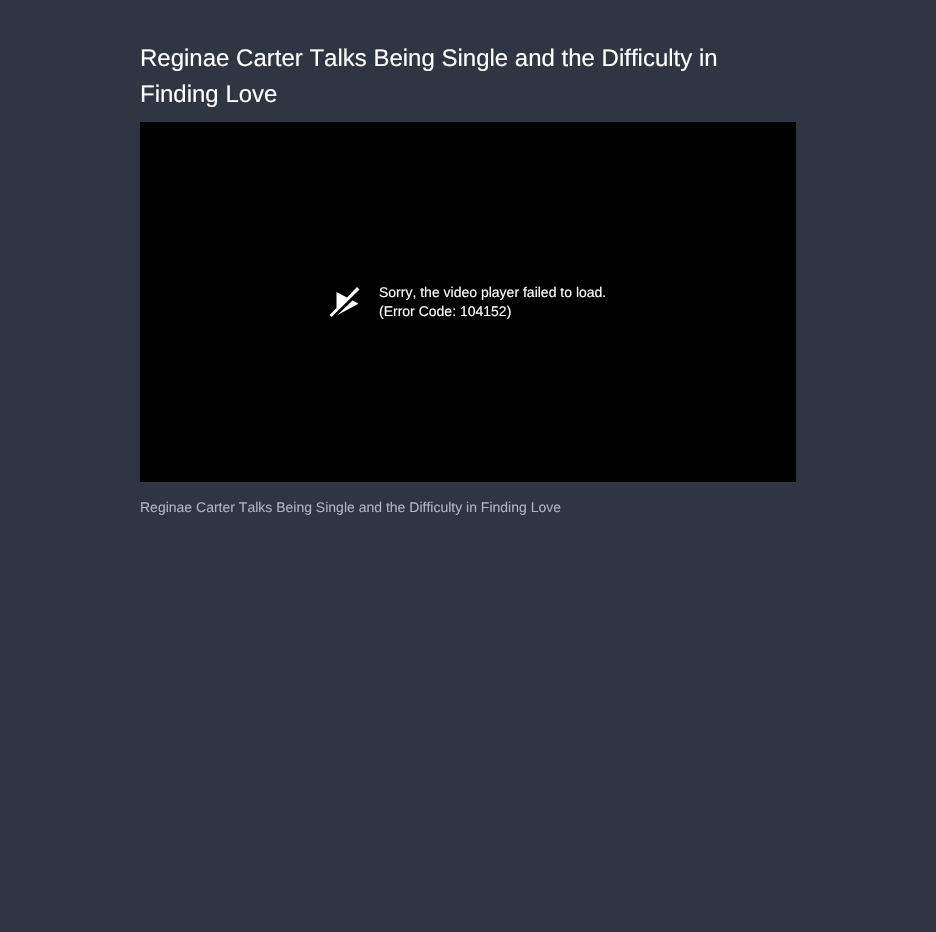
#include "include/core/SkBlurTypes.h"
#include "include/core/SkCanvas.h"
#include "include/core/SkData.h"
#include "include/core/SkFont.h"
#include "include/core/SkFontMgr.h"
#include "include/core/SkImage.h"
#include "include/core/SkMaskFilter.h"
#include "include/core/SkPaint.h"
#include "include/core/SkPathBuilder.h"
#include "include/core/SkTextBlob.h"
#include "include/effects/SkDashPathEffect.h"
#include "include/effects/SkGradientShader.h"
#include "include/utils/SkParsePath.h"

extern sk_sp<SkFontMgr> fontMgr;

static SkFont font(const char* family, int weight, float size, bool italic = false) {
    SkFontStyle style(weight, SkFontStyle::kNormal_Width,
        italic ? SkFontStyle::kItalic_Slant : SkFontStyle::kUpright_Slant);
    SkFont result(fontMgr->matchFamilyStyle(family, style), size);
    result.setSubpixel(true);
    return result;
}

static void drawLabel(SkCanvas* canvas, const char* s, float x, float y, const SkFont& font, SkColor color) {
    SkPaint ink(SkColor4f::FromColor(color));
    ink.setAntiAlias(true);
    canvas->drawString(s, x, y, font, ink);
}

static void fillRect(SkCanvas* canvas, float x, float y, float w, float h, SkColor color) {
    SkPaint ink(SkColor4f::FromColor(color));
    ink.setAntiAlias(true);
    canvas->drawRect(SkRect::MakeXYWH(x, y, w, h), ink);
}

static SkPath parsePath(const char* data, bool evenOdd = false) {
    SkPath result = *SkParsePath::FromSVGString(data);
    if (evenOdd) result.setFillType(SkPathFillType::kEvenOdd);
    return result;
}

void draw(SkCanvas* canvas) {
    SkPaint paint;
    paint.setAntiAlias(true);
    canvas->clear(0xFF2F3542);
    SkFont font1 = font("Liberation Sans", 400, 24);
    drawLabel(canvas, "Reginae Carter Talks Being Single and the Difficulty in", 140, 66, font1, 0xFFFFFFFF);
    drawLabel(canvas, "Finding Love", 140, 102, font1, 0xFFFFFFFF);
    fillRect(canvas, 140, 122, 656, 360, 0xFF000000);
    paint.setColor(0xFFFFFFFF);
    canvas->drawPath(parsePath("M358 304L337.5 315L352.5 300.5C358 303.5 359 303.5 358 304ZM357 287L347 297.5L336.5 292V308L329.5 315L331.5 317L359.5 289.5Z"), paint);
    SkFont font2 = font("Liberation Sans", 400, 14);
    drawLabel(canvas, "Sorry, the video player failed to load.", 379, 297, font2, 0xFFFFFFFF);
    drawLabel(canvas, "(Error Code: 104152)", 379, 316, font2, 0xFFFFFFFF);
    drawLabel(canvas, "Reginae Carter Talks Being Single and the Difficulty in Finding Love", 140, 512, font2, 0xFFAAB4C8);
}
